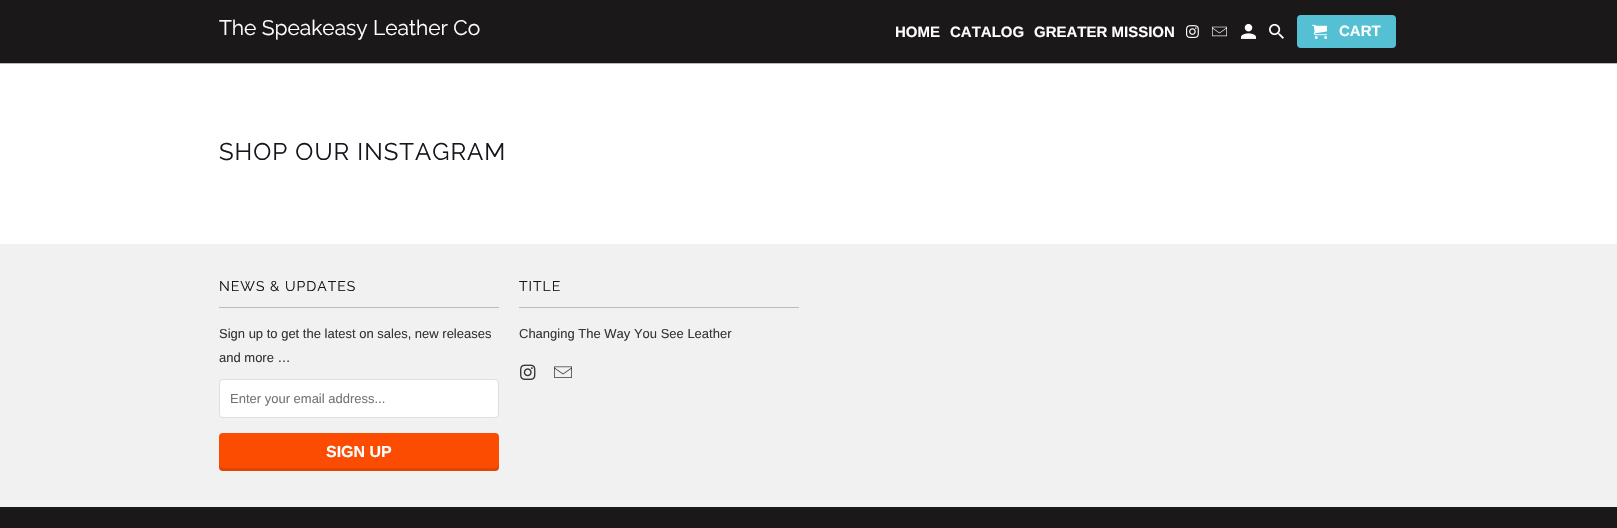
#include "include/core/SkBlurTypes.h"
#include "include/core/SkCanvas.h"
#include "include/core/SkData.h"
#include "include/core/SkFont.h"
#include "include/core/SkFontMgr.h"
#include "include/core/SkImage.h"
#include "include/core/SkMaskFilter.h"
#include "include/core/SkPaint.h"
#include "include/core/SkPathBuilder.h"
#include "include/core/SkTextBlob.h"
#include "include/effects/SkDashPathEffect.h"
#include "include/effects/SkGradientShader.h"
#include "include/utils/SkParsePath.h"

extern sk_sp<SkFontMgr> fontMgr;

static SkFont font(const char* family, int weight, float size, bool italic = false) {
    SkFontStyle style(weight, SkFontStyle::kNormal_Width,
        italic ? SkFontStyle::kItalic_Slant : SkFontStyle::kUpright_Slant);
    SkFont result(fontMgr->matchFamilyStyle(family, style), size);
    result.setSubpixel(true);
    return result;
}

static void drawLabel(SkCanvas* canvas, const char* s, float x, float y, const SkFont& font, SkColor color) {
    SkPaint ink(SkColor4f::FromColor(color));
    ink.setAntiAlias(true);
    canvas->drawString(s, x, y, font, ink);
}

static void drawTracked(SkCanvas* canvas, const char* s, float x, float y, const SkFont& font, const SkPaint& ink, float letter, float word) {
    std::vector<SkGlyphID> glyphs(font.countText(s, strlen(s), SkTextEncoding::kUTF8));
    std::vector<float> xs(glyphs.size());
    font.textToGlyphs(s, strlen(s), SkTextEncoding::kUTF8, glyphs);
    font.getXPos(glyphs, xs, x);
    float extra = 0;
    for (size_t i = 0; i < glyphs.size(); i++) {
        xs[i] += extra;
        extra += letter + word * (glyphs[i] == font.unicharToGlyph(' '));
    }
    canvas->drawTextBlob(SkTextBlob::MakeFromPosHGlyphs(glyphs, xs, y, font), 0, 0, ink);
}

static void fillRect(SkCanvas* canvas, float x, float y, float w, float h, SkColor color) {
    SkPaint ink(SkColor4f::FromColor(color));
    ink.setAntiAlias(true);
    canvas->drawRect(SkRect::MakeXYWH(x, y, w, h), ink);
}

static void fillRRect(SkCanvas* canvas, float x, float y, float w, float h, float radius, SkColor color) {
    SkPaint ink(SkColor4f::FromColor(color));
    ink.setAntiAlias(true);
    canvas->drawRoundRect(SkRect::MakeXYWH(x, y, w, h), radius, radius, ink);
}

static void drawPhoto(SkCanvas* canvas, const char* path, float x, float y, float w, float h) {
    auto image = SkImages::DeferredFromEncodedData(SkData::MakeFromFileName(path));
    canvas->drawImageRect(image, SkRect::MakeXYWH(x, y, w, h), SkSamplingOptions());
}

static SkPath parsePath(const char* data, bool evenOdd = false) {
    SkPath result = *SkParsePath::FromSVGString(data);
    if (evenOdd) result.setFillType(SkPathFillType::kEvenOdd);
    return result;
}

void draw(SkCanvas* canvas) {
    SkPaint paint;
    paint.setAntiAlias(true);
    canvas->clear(0xFFFFFFFF);
    fillRect(canvas, 0, 0, 1617, 63, 0xFF1B1819);
    fillRect(canvas, 0, 63, 1617, 1, 0xFFBBBBBB);
    SkFont font1 = font("Raleway", 400, 21);
    drawLabel(canvas, "The Speakeasy Leather Co", 219, 35, font1, 0xFFFFFFFF);
    SkFont font2 = font("Liberation Sans", 700, 15);
    drawLabel(canvas, "HOME", 895, 37, font2, 0xFFFFFFFF);
    drawLabel(canvas, "CATALOG", 950, 37, font2, 0xFFFFFFFF);
    drawLabel(canvas, "GREATER MISSION", 1034, 37, font2, 0xFFFFFFFF);
    drawPhoto(canvas, "assets/img1.png", 1186, 25, 13, 13);
    drawPhoto(canvas, "assets/img2.png", 1212, 26, 15, 11);
    drawPhoto(canvas, "assets/img3.png", 1241, 23, 15, 16);
    drawPhoto(canvas, "assets/img4.png", 1269, 23, 15, 16);
    fillRRect(canvas, 1297, 15, 99, 33, 4, 0xFF55C0D4);
    drawPhoto(canvas, "assets/img5.png", 1312, 24, 15, 15);
    drawLabel(canvas, "CART", 1339, 36, font2, 0xFFFFFFFF);
    SkFont font3 = font("Raleway", 400, 24);
    paint.setColor(0xFF16161D);
    drawTracked(canvas, "SHOP OUR INSTAGRAM", 219, 160, font3, paint, 1, 0);
    fillRect(canvas, 0, 244, 1617, 263, 0xFFF1F1F1);
    fillRect(canvas, 219, 307, 280, 1, 0xFFBBBBBB);
    SkFont font4 = font("Raleway", 400, 14);
    drawTracked(canvas, "NEWS & UPDATES", 219, 291, font4, paint, 1, 0);
    SkFont font5 = font("Liberation Sans", 400, 13);
    drawLabel(canvas, "Sign up to get the latest on sales, new releases", 219, 338, font5, 0xFF363636);
    drawLabel(canvas, "and more …", 219, 362, font5, 0xFF363636);
    paint.setColor(0xFFFFFFFF);
    canvas->drawRoundRect(SkRect::MakeXYWH(219.5f, 379.5f, 279, 38), 3.5f, 3.5f, paint);
    paint.setStroke(true);
    paint.setStrokeWidth(1);
    paint.setColor(0xFFDCE0E0);
    canvas->drawRoundRect(SkRect::MakeXYWH(219.5f, 379.5f, 279, 38), 3.5f, 3.5f, paint);
    drawLabel(canvas, "Enter your email address...", 230, 403, font5, 0xFF757575);
    fillRRect(canvas, 219, 433, 280, 38, 4, 0xFFFC4C02);
    paint.setStroke(false);
    paint.setColor(0x1A000000);
    canvas->drawPath(parsePath("M219 464C219 467 219 470 222 471H496C499 470 499 467 499 464C499 466 497 468 495 468H223C221 468 219 466 219 464Z"), paint);
    SkFont font6 = font("Liberation Sans", 700, 16);
    drawLabel(canvas, "SIGN UP", 326, 457, font6, 0xFFFFFFFF);
    fillRect(canvas, 519, 307, 280, 1, 0xFFBBBBBB);
    paint.setColor(0xFF16161D);
    drawTracked(canvas, "TITLE", 519, 291, font4, paint, 1, 0);
    drawLabel(canvas, "Changing The Way You See Leather", 519, 338, font5, 0xFF363636);
    drawPhoto(canvas, "assets/img6.png", 520, 364, 16, 16);
    drawPhoto(canvas, "assets/img7.png", 554, 366, 18, 12);
    fillRect(canvas, 0, 507, 1617, 21, 0xFF1B1819);
}
